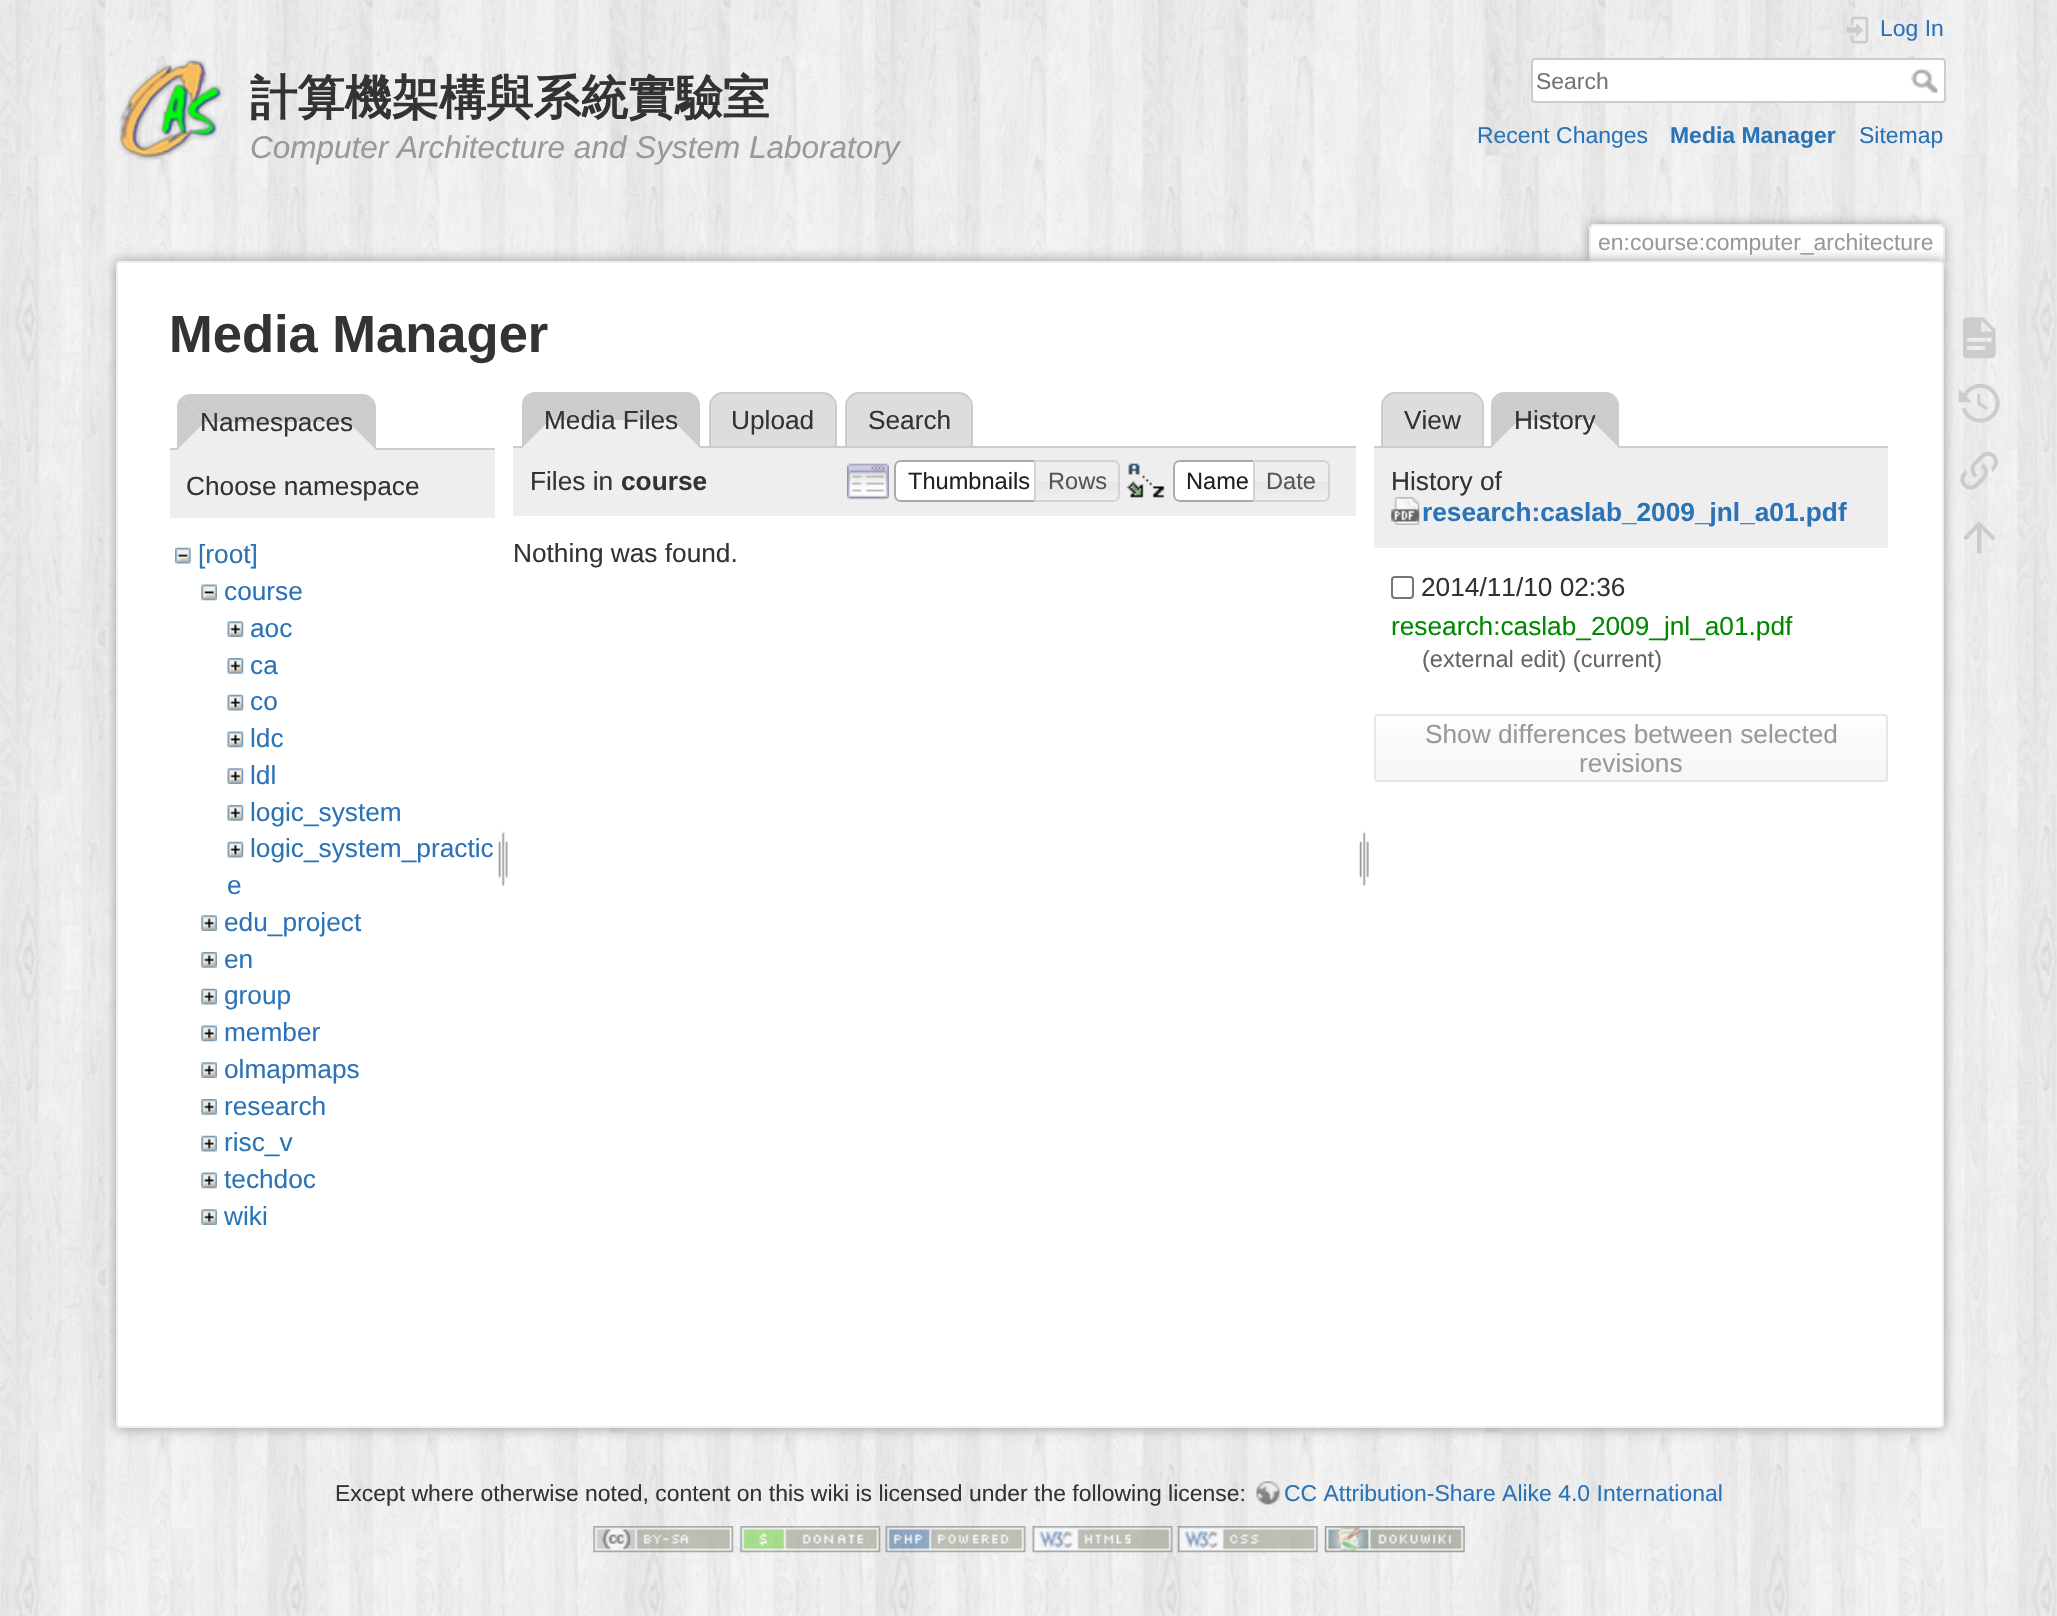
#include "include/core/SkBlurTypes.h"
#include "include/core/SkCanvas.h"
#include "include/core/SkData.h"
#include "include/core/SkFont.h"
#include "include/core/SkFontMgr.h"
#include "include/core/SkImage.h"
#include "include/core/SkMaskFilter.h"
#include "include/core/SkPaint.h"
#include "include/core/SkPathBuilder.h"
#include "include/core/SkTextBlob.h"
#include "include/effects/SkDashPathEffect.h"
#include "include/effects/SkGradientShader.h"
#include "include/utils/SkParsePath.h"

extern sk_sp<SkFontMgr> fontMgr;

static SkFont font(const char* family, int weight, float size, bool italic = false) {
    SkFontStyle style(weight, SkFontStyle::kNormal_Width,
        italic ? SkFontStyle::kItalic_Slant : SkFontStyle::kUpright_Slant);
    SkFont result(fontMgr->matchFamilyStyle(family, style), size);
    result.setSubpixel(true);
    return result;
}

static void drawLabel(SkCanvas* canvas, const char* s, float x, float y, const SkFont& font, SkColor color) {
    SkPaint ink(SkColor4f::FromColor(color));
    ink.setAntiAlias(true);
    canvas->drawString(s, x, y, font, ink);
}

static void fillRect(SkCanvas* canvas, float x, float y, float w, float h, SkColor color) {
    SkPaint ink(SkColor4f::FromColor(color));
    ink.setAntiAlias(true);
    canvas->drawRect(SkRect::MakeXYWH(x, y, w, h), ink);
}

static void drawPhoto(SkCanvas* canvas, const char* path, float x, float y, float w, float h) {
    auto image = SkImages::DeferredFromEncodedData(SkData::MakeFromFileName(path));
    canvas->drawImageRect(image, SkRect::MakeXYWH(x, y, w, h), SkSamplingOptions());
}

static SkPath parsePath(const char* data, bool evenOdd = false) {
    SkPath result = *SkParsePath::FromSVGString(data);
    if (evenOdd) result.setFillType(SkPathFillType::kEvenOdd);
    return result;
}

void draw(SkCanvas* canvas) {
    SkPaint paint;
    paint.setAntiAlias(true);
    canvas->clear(0xFFFFFFFF);
    drawPhoto(canvas, "assets/img1.png", 0, 0, 2057, 1616);
    drawPhoto(canvas, "assets/img2.png", 116, 59, 109, 102);
    SkFont font1 = font("WenQuanYi Zen Hei", 700, 47.25f);
    drawLabel(canvas, "計算機架構與系統實驗室", 250, 114, font1, 0xFF333333);
    SkFont font2 = font("Liberation Sans", 400, 31.5f, true);
    drawLabel(canvas, "Computer Architecture and System Laboratory", 250, 158, font2, 0xFF999999);
    drawPhoto(canvas, "assets/img3.png", 1846, 16, 23, 28);
    SkFont font3 = font("Liberation Sans", 400, 22.95f);
    drawLabel(canvas, "Log In", 1880, 36, font3, 0xFF2B73B7);
    paint.setColor(0xFFFFFFFF);
    canvas->drawRoundRect(SkRect::MakeXYWH(1532, 59, 413, 43), 3, 3, paint);
    paint.setStroke(true);
    paint.setStrokeWidth(2);
    paint.setColor(0xFFCCCCCC);
    canvas->drawRoundRect(SkRect::MakeXYWH(1532, 59, 413, 43), 3, 3, paint);
    drawLabel(canvas, "Search", 1536, 89, font3, 0xFF757575);
    drawPhoto(canvas, "assets/img4.png", 1911, 68, 27, 25);
    drawLabel(canvas, "Recent Changes", 1477, 143, font3, 0xFF2B73B7);
    SkFont font4 = font("Liberation Sans", 700, 22.95f);
    drawLabel(canvas, "Media Manager", 1670, 143, font4, 0xFF2B73B7);
    drawLabel(canvas, "Sitemap", 1859, 143, font3, 0xFF2B73B7);
    canvas->save();
    canvas->clipRect(SkRect::MakeXYWH(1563, 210, 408, 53));
    paint.setStroke(false);
    paint.setColor(0xFF999999);
    paint.setMaskFilter(SkMaskFilter::MakeBlur(kNormal_SkBlurStyle, 5.5f));
    canvas->drawRoundRect(SkRect::MakeXYWH(1589, 224, 355, 39), 4, 4, paint);
    paint.setMaskFilter(nullptr);
    canvas->restore();
    paint.setColor(0xFFFFFFFF);
    canvas->drawPath(parsePath("M1593 226H1941C1942 226 1943 227 1943 228V263H1591V228C1591 227 1592 226 1593 226Z"), paint);
    fillRect(canvas, 1591, 224, 352, 2, 0xFFEEEEEE);
    fillRect(canvas, 1943, 226, 2, 37, 0xFFEEEEEE);
    fillRect(canvas, 1589, 226, 2, 37, 0xFFEEEEEE);
    drawLabel(canvas, "en:course:computer_architecture", 1598, 250, font3, 0xFF999999);
    paint.setColor(0xFF999999);
    paint.setMaskFilter(SkMaskFilter::MakeBlur(kNormal_SkBlurStyle, 6.5f));
    canvas->drawRoundRect(SkRect::MakeXYWH(116, 261, 1828, 1167), 4, 4, paint);
    paint.setMaskFilter(nullptr);
    paint.setColor(0xFFFFFFFF);
    canvas->drawRoundRect(SkRect::MakeXYWH(117, 262, 1826, 1165), 3, 3, paint);
    paint.setStroke(true);
    paint.setColor(0xFFEEEEEE);
    canvas->drawRoundRect(SkRect::MakeXYWH(117, 262, 1826, 1165), 3, 3, paint);
    SkFont font5 = font("Liberation Sans", 700, 52.5f);
    drawLabel(canvas, "Media Manager", 169, 352, font5, 0xFF333333);
    paint.setStroke(false);
    paint.setColor(0xFFCCCCCC);
    canvas->drawPath(parsePath("M190 394C186 394 183 396 181 398L205 422H348L372 398C370 396 366 394 363 394Z"), paint);
    fillRect(canvas, 170, 448, 325, 2, 0xFFCCCCCC);
    canvas->drawPath(parsePath("M376 450V407C376 404 374 400 372 398L348 422Z"), paint);
    paint.setColor(0xFFEEEEEE);
    canvas->drawPath(parsePath("M376 450L348 422H205L177 450Z"), paint);
    paint.setColor(0xFFCCCCCC);
    canvas->drawPath(parsePath("M181 398C178 400 177 404 177 407V450L205 422Z"), paint);
    SkFont font6 = font("Liberation Sans", 400, 26.25f);
    drawLabel(canvas, "Namespaces", 200, 431, font6, 0xFF333333);
    fillRect(canvas, 170, 450, 325, 68, 0xFFEEEEEE);
    drawLabel(canvas, "Choose namespace", 186, 495, font6, 0xFF333333);
    drawPhoto(canvas, "assets/img5.png", 175, 547, 16, 17);
    drawLabel(canvas, "[root]", 198, 563, font6, 0xFF2B73B7);
    drawPhoto(canvas, "assets/img6.png", 201, 584, 16, 17);
    drawLabel(canvas, "course", 224, 600, font6, 0xFF2B73B7);
    drawPhoto(canvas, "assets/img7.png", 227, 621, 17, 16);
    drawLabel(canvas, "aoc", 250, 637, font6, 0xFF2B73B7);
    drawPhoto(canvas, "assets/img8.png", 227, 658, 17, 16);
    drawLabel(canvas, "ca", 250, 674, font6, 0xFF2B73B7);
    drawPhoto(canvas, "assets/img9.png", 227, 694, 17, 17);
    drawLabel(canvas, "co", 250, 710, font6, 0xFF2B73B7);
    drawPhoto(canvas, "assets/img10.png", 227, 731, 17, 17);
    drawLabel(canvas, "ldc", 250, 747, font6, 0xFF2B73B7);
    drawPhoto(canvas, "assets/img7.png", 227, 768, 17, 16);
    drawLabel(canvas, "ldl", 250, 784, font6, 0xFF2B73B7);
    drawPhoto(canvas, "assets/img8.png", 227, 805, 17, 16);
    drawLabel(canvas, "logic_system", 250, 821, font6, 0xFF2B73B7);
    drawPhoto(canvas, "assets/img9.png", 227, 841, 17, 17);
    drawLabel(canvas, "logic_system_practic", 250, 857, font6, 0xFF2B73B7);
    drawLabel(canvas, "e", 227, 894, font6, 0xFF2B73B7);
    drawPhoto(canvas, "assets/img11.png", 201, 915, 16, 16);
    drawLabel(canvas, "edu_project", 224, 931, font6, 0xFF2B73B7);
    drawPhoto(canvas, "assets/img12.png", 201, 952, 16, 16);
    drawLabel(canvas, "en", 224, 968, font6, 0xFF2B73B7);
    drawPhoto(canvas, "assets/img13.png", 201, 988, 16, 17);
    drawLabel(canvas, "group", 224, 1004, font6, 0xFF2B73B7);
    drawPhoto(canvas, "assets/img14.png", 201, 1025, 16, 17);
    drawLabel(canvas, "member", 224, 1041, font6, 0xFF2B73B7);
    drawPhoto(canvas, "assets/img11.png", 201, 1062, 16, 16);
    drawLabel(canvas, "olmapmaps", 224, 1078, font6, 0xFF2B73B7);
    drawPhoto(canvas, "assets/img12.png", 201, 1099, 16, 16);
    drawLabel(canvas, "research", 224, 1115, font6, 0xFF2B73B7);
    drawPhoto(canvas, "assets/img13.png", 201, 1135, 16, 17);
    drawLabel(canvas, "risc_v", 224, 1151, font6, 0xFF2B73B7);
    drawPhoto(canvas, "assets/img14.png", 201, 1172, 16, 17);
    drawLabel(canvas, "techdoc", 224, 1188, font6, 0xFF2B73B7);
    drawPhoto(canvas, "assets/img11.png", 201, 1209, 16, 16);
    drawLabel(canvas, "wiki", 224, 1225, font6, 0xFF2B73B7);
    drawPhoto(canvas, "assets/img15.png", 498, 831, 10, 55);
    canvas->drawPath(parsePath("M535 392H687C690 392 694 394 696 396L672 420H550L525 396C528 394 531 392 535 392Z"), paint);
    paint.setColor(0xFFDDDDDD);
    canvas->drawPath(parsePath("M723 393H823C830 393 836 399 836 406V447H710V406C710 399 716 393 723 393Z"), paint);
    paint.setStroke(true);
    paint.setColor(0xFFCCCCCC);
    canvas->drawPath(parsePath("M723 393H823C830 393 836 399 836 406V447H710V406C710 399 716 393 723 393Z"), paint);
    paint.setStroke(false);
    paint.setColor(0xFFDDDDDD);
    canvas->drawPath(parsePath("M859 393H959C966 393 972 399 972 406V447H846V406C846 399 852 393 859 393Z"), paint);
    paint.setStroke(true);
    paint.setColor(0xFFCCCCCC);
    canvas->drawPath(parsePath("M859 393H959C966 393 972 399 972 406V447H846V406C846 399 852 393 859 393Z"), paint);
    fillRect(canvas, 513, 446, 843, 2, 0xFFCCCCCC);
    paint.setStroke(false);
    canvas->drawPath(parsePath("M696 396L672 420L700 448V405C700 402 698 398 696 396Z"), paint);
    paint.setColor(0xFFEEEEEE);
    canvas->drawPath(parsePath("M700 448H522L550 420H672Z"), paint);
    paint.setColor(0xFFCCCCCC);
    canvas->drawPath(parsePath("M525 396C523 398 522 402 522 405V448L550 420Z"), paint);
    drawLabel(canvas, "Media Files", 544, 429, font6, 0xFF333333);
    drawLabel(canvas, "Upload", 731, 429, font6, 0xFF333333);
    drawLabel(canvas, "Search", 868, 429, font6, 0xFF333333);
    fillRect(canvas, 513, 448, 843, 68, 0xFFEEEEEE);
    drawLabel(canvas, "Files in", 530, 490, font6, 0xFF333333);
    SkFont font7 = font("Liberation Sans", 700, 26.25f);
    drawLabel(canvas, "course", 621, 490, font7, 0xFF333333);
    drawPhoto(canvas, "assets/img16.png", 847, 463, 42, 37);
    paint.setColor(0xFFFFFFFF);
    canvas->drawPath(parsePath("M901 460H1043V502H901C897 502 894 499 894 495V467C894 463 897 460 901 460Z"), paint);
    drawPhoto(canvas, "assets/img17.png", 896, 500, 3, 2);
    paint.setStroke(true);
    paint.setColor(0xFFAAAAAA);
    canvas->drawPath(parsePath("M901 461H1042V501H901C897.5 501 895 498.5 895 495V467C895 463.5 897.5 461 901 461Z"), paint);
    SkFont font8 = font("Liberation Sans", 400, 23.6f);
    drawLabel(canvas, "Thumbnails", 908, 489, font8, 0xFF212121);
    drawPhoto(canvas, "assets/img18.png", 1036, 460, 84, 42);
    paint.setColor(0xFFD3D3D3);
    canvas->drawPath(parsePath("M1035 461H1113C1116.5 461 1119 463.5 1119 467V495C1119 498.5 1116.5 501 1113 501H1035Z"), paint);
    drawLabel(canvas, "Rows", 1048, 489, font8, 0xFF555555);
    drawPhoto(canvas, "assets/img19.png", 1126, 463, 39, 35);
    paint.setStroke(false);
    paint.setColor(0xFFFFFFFF);
    canvas->drawPath(parsePath("M1180 460H1262V502H1180C1176 502 1173 499 1173 495V467C1173 463 1176 460 1180 460Z"), paint);
    drawPhoto(canvas, "assets/img20.png", 1172, 461, 6, 41);
    paint.setStroke(true);
    paint.setColor(0xFFAAAAAA);
    canvas->drawPath(parsePath("M1180 461H1261V501H1180C1176.5 501 1174 498.5 1174 495V467C1174 463.5 1176.5 461 1180 461Z"), paint);
    drawLabel(canvas, "Name", 1186, 489, font8, 0xFF212121);
    drawPhoto(canvas, "assets/img21.png", 1255, 460, 75, 42);
    paint.setColor(0xFFD3D3D3);
    canvas->drawPath(parsePath("M1254 461H1323C1326.5 461 1329 463.5 1329 467V495C1329 498.5 1326.5 501 1323 501H1254Z"), paint);
    drawLabel(canvas, "Date", 1266, 489, font8, 0xFF555555);
    drawLabel(canvas, "Nothing was found.", 513, 562, font6, 0xFF333333);
    drawPhoto(canvas, "assets/img22.png", 1359, 831, 10, 55);
    paint.setStroke(false);
    paint.setColor(0xFFDDDDDD);
    canvas->drawPath(parsePath("M1395 393H1470C1477 393 1483 399 1483 406V447H1382V406C1382 399 1388 393 1395 393Z"), paint);
    paint.setStroke(true);
    paint.setColor(0xFFCCCCCC);
    canvas->drawPath(parsePath("M1395 393H1470C1477 393 1483 399 1483 406V447H1382V406C1382 399 1388 393 1395 393Z"), paint);
    drawLabel(canvas, "View", 1404, 429, font6, 0xFF333333);
    paint.setStroke(false);
    canvas->drawPath(parsePath("M1504 392H1606C1609 392 1613 393 1615 396L1591 420H1519L1495 396C1497 394 1500 392 1504 392Z"), paint);
    fillRect(canvas, 1374, 446, 514, 2, 0xFFCCCCCC);
    canvas->drawPath(parsePath("M1615 396L1591 420L1619 448V403C1618 400 1617 398 1615 396Z"), paint);
    paint.setColor(0xFFEEEEEE);
    canvas->drawPath(parsePath("M1619 448L1591 420H1519L1491 448Z"), paint);
    paint.setColor(0xFFCCCCCC);
    canvas->drawPath(parsePath("M1491 448V405C1491 402 1492 398 1495 396L1519 420Z"), paint);
    drawLabel(canvas, "History", 1514, 429, font6, 0xFF333333);
    fillRect(canvas, 1374, 448, 514, 100, 0xFFEEEEEE);
    drawLabel(canvas, "History of", 1391, 490, font6, 0xFF333333);
    drawPhoto(canvas, "assets/img23.png", 1391, 497, 29, 28);
    drawLabel(canvas, "research:caslab_2009_jnl_a01.pdf", 1422, 521, font7, 0xFF2B73B7);
    paint.setStroke(true);
    paint.setColor(0xFF767676);
    canvas->drawRoundRect(SkRect::MakeXYWH(1392, 577, 21, 21), 3, 3, paint);
    drawLabel(canvas, "2014/11/10 02:36", 1421, 596, font6, 0xFF333333);
    drawLabel(canvas, "research:caslab_2009_jnl_a01.pdf", 1391, 635, font6, 0xFF008800);
    drawLabel(canvas, "(external edit) (current)", 1422, 667, font8, 0xFF666666);
    canvas->save();
    canvas->clipPath(parsePath("M1378 714H1884C1886 714 1888 716 1888 718V778C1888 780 1886 782 1884 782H1378C1376 782 1374 780 1374 778V718C1374 716 1376 714 1378 714Z"), true);
    paint.setStroke(false);
    {
        const SkColor colors[] = {0xFFFFFFFF, 0xFFFAFAFA, 0xFFF7F7F7, 0xFFE6E6E6};
        const float stops[] = {0, 0.3f, 0.99f, 0.99f};
        const SkPoint ends[] = {{1631, 716}, {1631, 781}};
        paint.setShader(SkGradientShader::MakeLinear(ends, colors, stops, 4, SkTileMode::kClamp));
        paint.setAlpha(255);
    }
    canvas->drawRect(SkRect::MakeXYWH(1374, 716, 514, 65), paint);
    canvas->restore();
    paint.setStroke(true);
    paint.setShader(nullptr);
    paint.setColor(0xFFE6E6E6);
    canvas->drawRoundRect(SkRect::MakeXYWH(1375, 715, 512, 66), 3, 3, paint);
    drawLabel(canvas, "Show differences between selected", 1425, 743, font6, 0xFF999999);
    drawLabel(canvas, "revisions", 1579, 772, font6, 0xFF999999);
    drawPhoto(canvas, "assets/img24.png", 1963, 317, 33, 42);
    drawPhoto(canvas, "assets/img25.png", 1958, 383, 42, 40);
    drawPhoto(canvas, "assets/img26.png", 1960, 452, 38, 38);
    paint.setStroke(false);
    paint.setColor(0xFFCCCCCC);
    canvas->drawPath(parsePath("M1981.5 553.5H1977V529L1966 540.5L1963 537.5L1979 521L1995.5 537.5L1992.5 540.5L1981.5 529Z"), paint);
    drawLabel(canvas, "Except where otherwise noted, content on this wiki is licensed under the following license:", 335, 1501, font3, 0xFF333333);
    drawPhoto(canvas, "assets/img27.png", 1256, 1481, 25, 24);
    drawLabel(canvas, "CC Attribution-Share Alike 4.0 International", 1284, 1501, font3, 0xFF2B73B7);
    drawPhoto(canvas, "assets/img28.png", 593, 1526, 141, 27);
    drawPhoto(canvas, "assets/img29.png", 740, 1526, 141, 27);
    drawPhoto(canvas, "assets/img30.png", 885, 1526, 141, 27);
    drawPhoto(canvas, "assets/img31.png", 1032, 1526, 141, 27);
    drawPhoto(canvas, "assets/img32.png", 1177, 1526, 141, 27);
    drawPhoto(canvas, "assets/img33.png", 1324, 1526, 141, 27);
}
